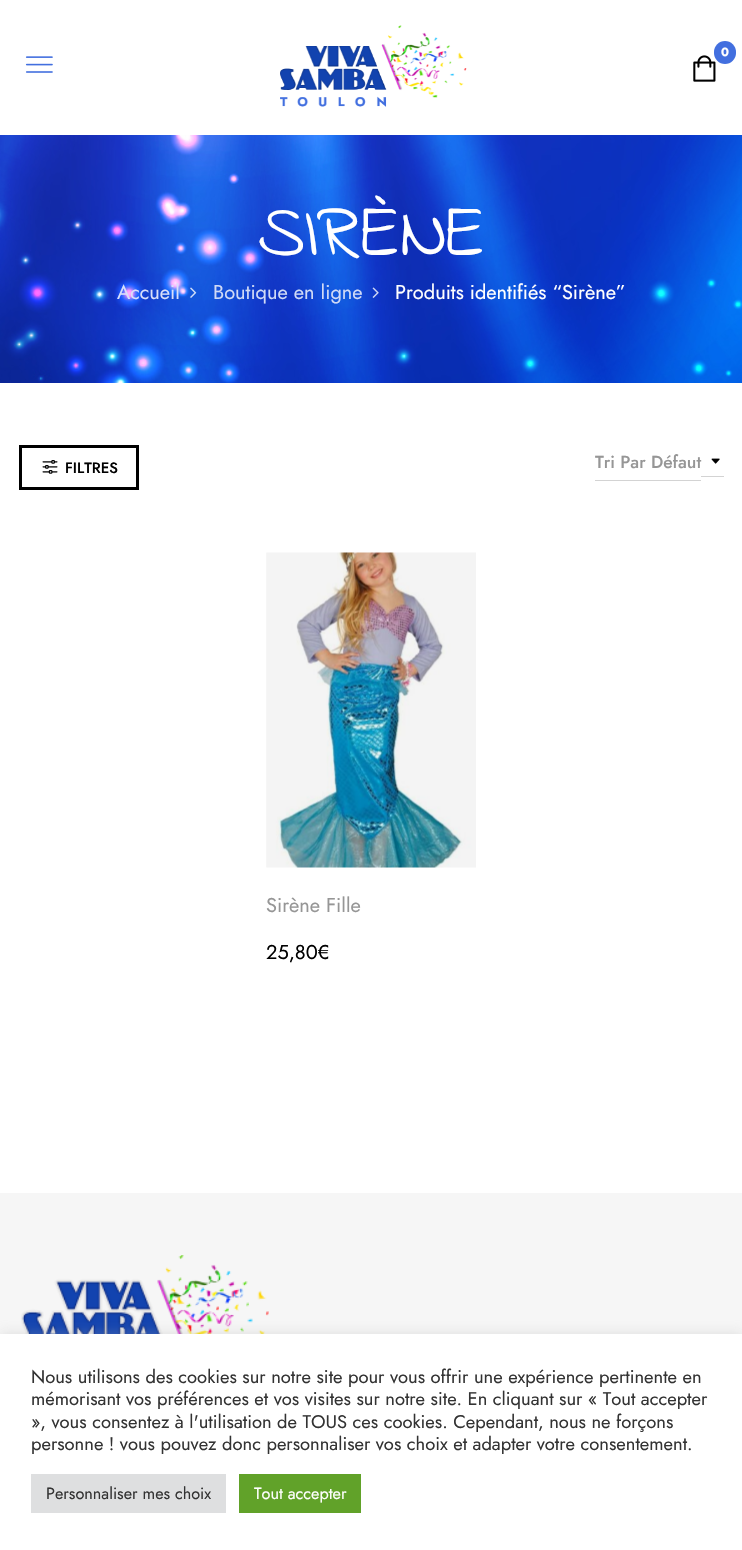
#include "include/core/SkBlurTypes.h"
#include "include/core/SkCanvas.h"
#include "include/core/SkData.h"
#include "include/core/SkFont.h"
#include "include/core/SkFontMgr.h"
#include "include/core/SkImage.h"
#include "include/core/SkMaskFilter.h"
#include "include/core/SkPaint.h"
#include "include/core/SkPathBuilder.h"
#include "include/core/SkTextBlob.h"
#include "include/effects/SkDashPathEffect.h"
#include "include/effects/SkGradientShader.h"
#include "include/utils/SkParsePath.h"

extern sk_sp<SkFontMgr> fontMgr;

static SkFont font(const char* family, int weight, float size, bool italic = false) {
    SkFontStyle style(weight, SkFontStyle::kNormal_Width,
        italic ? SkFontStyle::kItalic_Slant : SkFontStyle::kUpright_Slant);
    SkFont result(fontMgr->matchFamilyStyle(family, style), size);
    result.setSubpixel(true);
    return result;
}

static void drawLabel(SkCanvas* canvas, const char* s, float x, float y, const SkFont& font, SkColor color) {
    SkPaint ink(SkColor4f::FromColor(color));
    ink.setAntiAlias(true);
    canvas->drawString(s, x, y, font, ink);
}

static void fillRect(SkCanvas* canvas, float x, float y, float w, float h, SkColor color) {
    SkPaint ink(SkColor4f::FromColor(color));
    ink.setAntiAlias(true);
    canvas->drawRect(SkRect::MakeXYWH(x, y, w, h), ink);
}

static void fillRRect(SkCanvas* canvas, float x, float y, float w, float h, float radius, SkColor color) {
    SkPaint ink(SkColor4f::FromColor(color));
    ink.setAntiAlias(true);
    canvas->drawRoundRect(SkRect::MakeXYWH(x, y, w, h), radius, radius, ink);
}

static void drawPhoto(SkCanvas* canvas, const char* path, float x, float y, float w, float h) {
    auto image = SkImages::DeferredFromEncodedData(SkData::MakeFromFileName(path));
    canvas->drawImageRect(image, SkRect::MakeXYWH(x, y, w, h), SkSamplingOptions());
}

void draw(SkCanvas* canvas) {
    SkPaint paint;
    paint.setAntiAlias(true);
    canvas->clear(0xFFFFFFFF);
    drawPhoto(canvas, "assets/img1.png", 280, 25, 187, 82);
    drawPhoto(canvas, "assets/img2.png", 693, 55, 23, 27);
    fillRRect(canvas, 714, 41, 22, 23, 11, 0xFF426FDF);
    SkFont font1 = font("Jost", 700, 12);
    drawLabel(canvas, "0", 721, 56, font1, 0xFFFFFFFF);
    drawPhoto(canvas, "assets/img3.png", 25, 56, 28, 17);
    drawPhoto(canvas, "assets/img4.png", 0, 135, 742, 248);
    SkFont font2 = font("Indie Flower", 400, 75);
    drawLabel(canvas, "SIRÈNE", 258, 255, font2, 0xFFFFFFFF);
    SkFont font3 = font("Jost", 400, 20);
    drawLabel(canvas, "Accueil", 117, 299, font3, 0xFFD9DFFA);
    drawPhoto(canvas, "assets/img5.png", 190, 287, 7, 11);
    drawLabel(canvas, "Boutique en ligne", 213, 299, font3, 0xFFD0DAF6);
    drawPhoto(canvas, "assets/img6.png", 372, 287, 7, 11);
    drawLabel(canvas, "Produits identifiés “Sirène”", 395, 299, font3, 0xFFFFFFFF);
    paint.setStroke(true);
    paint.setStrokeWidth(3);
    paint.setColor(0xFF000000);
    canvas->drawRect(SkRect::MakeXYWH(20.5f, 446.5f, 117, 42), paint);
    drawPhoto(canvas, "assets/img7.png", 42, 460, 16, 14);
    SkFont font4 = font("Jost", 500, 15);
    drawLabel(canvas, "FILTRES", 65, 473, font4, 0xFF000000);
    fillRect(canvas, 595, 480, 106, 1, 0xFFD3D3D3);
    fillRect(canvas, 701, 476, 23, 1, 0xFFD3D3D3);
    SkFont font5 = font("Jost", 500, 17.5f);
    drawLabel(canvas, "Tri Par Défaut", 595, 468, font5, 0xFF969696);
    drawPhoto(canvas, "assets/img8.png", 711, 458, 9, 6);
    drawPhoto(canvas, "assets/img9.png", 266, 552, 210, 316);
    drawLabel(canvas, "Sirène Fille", 266, 912, font3, 0xFF969696);
    drawLabel(canvas, "25,80€", 266, 959, font3, 0xFF000000);
    fillRect(canvas, 0, 1193, 742, 141, 0xFFF6F6F6);
    drawPhoto(canvas, "assets/img10.png", 21, 1255, 248, 79);
    paint.setStroke(false);
    paint.setColor(0x4DACABAB);
    paint.setMaskFilter(SkMaskFilter::MakeBlur(kNormal_SkBlurStyle, 6));
    canvas->drawRect(SkRect::MakeXYWH(0, 1333, 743, 216), paint);
    paint.setMaskFilter(nullptr);
    fillRect(canvas, 0, 1334, 742, 216, 0xFFFFFFFF);
    SkFont font6 = font("Jost", 400, 18.35f);
    drawLabel(canvas, "Nous utilisons des cookies sur notre site pour vous offrir une expérience pertinente en", 31, 1383, font6, 0xFF333333);
    drawLabel(canvas, "mémorisant vos préférences et vos visites sur notre site. En cliquant sur « Tout accepter", 31, 1405, font6, 0xFF333333);
    drawLabel(canvas, "», vous consentez à l'utilisation de TOUS ces cookies. Cependant, nous ne forçons", 31, 1428, font6, 0xFF333333);
    drawLabel(canvas, "personne ! vous pouvez donc personnaliser vos choix et adapter votre consentement.", 31, 1450, font6, 0xFF333333);
    fillRect(canvas, 31, 1474, 195, 39, 0xFFDEDFE0);
    SkFont font7 = font("Jost", 400, 16.25f);
    drawLabel(canvas, "Personnaliser mes choix", 46, 1499, font7, 0xFF333333);
    fillRect(canvas, 239, 1474, 122, 39, 0xFF61A229);
    drawLabel(canvas, "Tout accepter", 254, 1499, font7, 0xFFFFFFFF);
}
